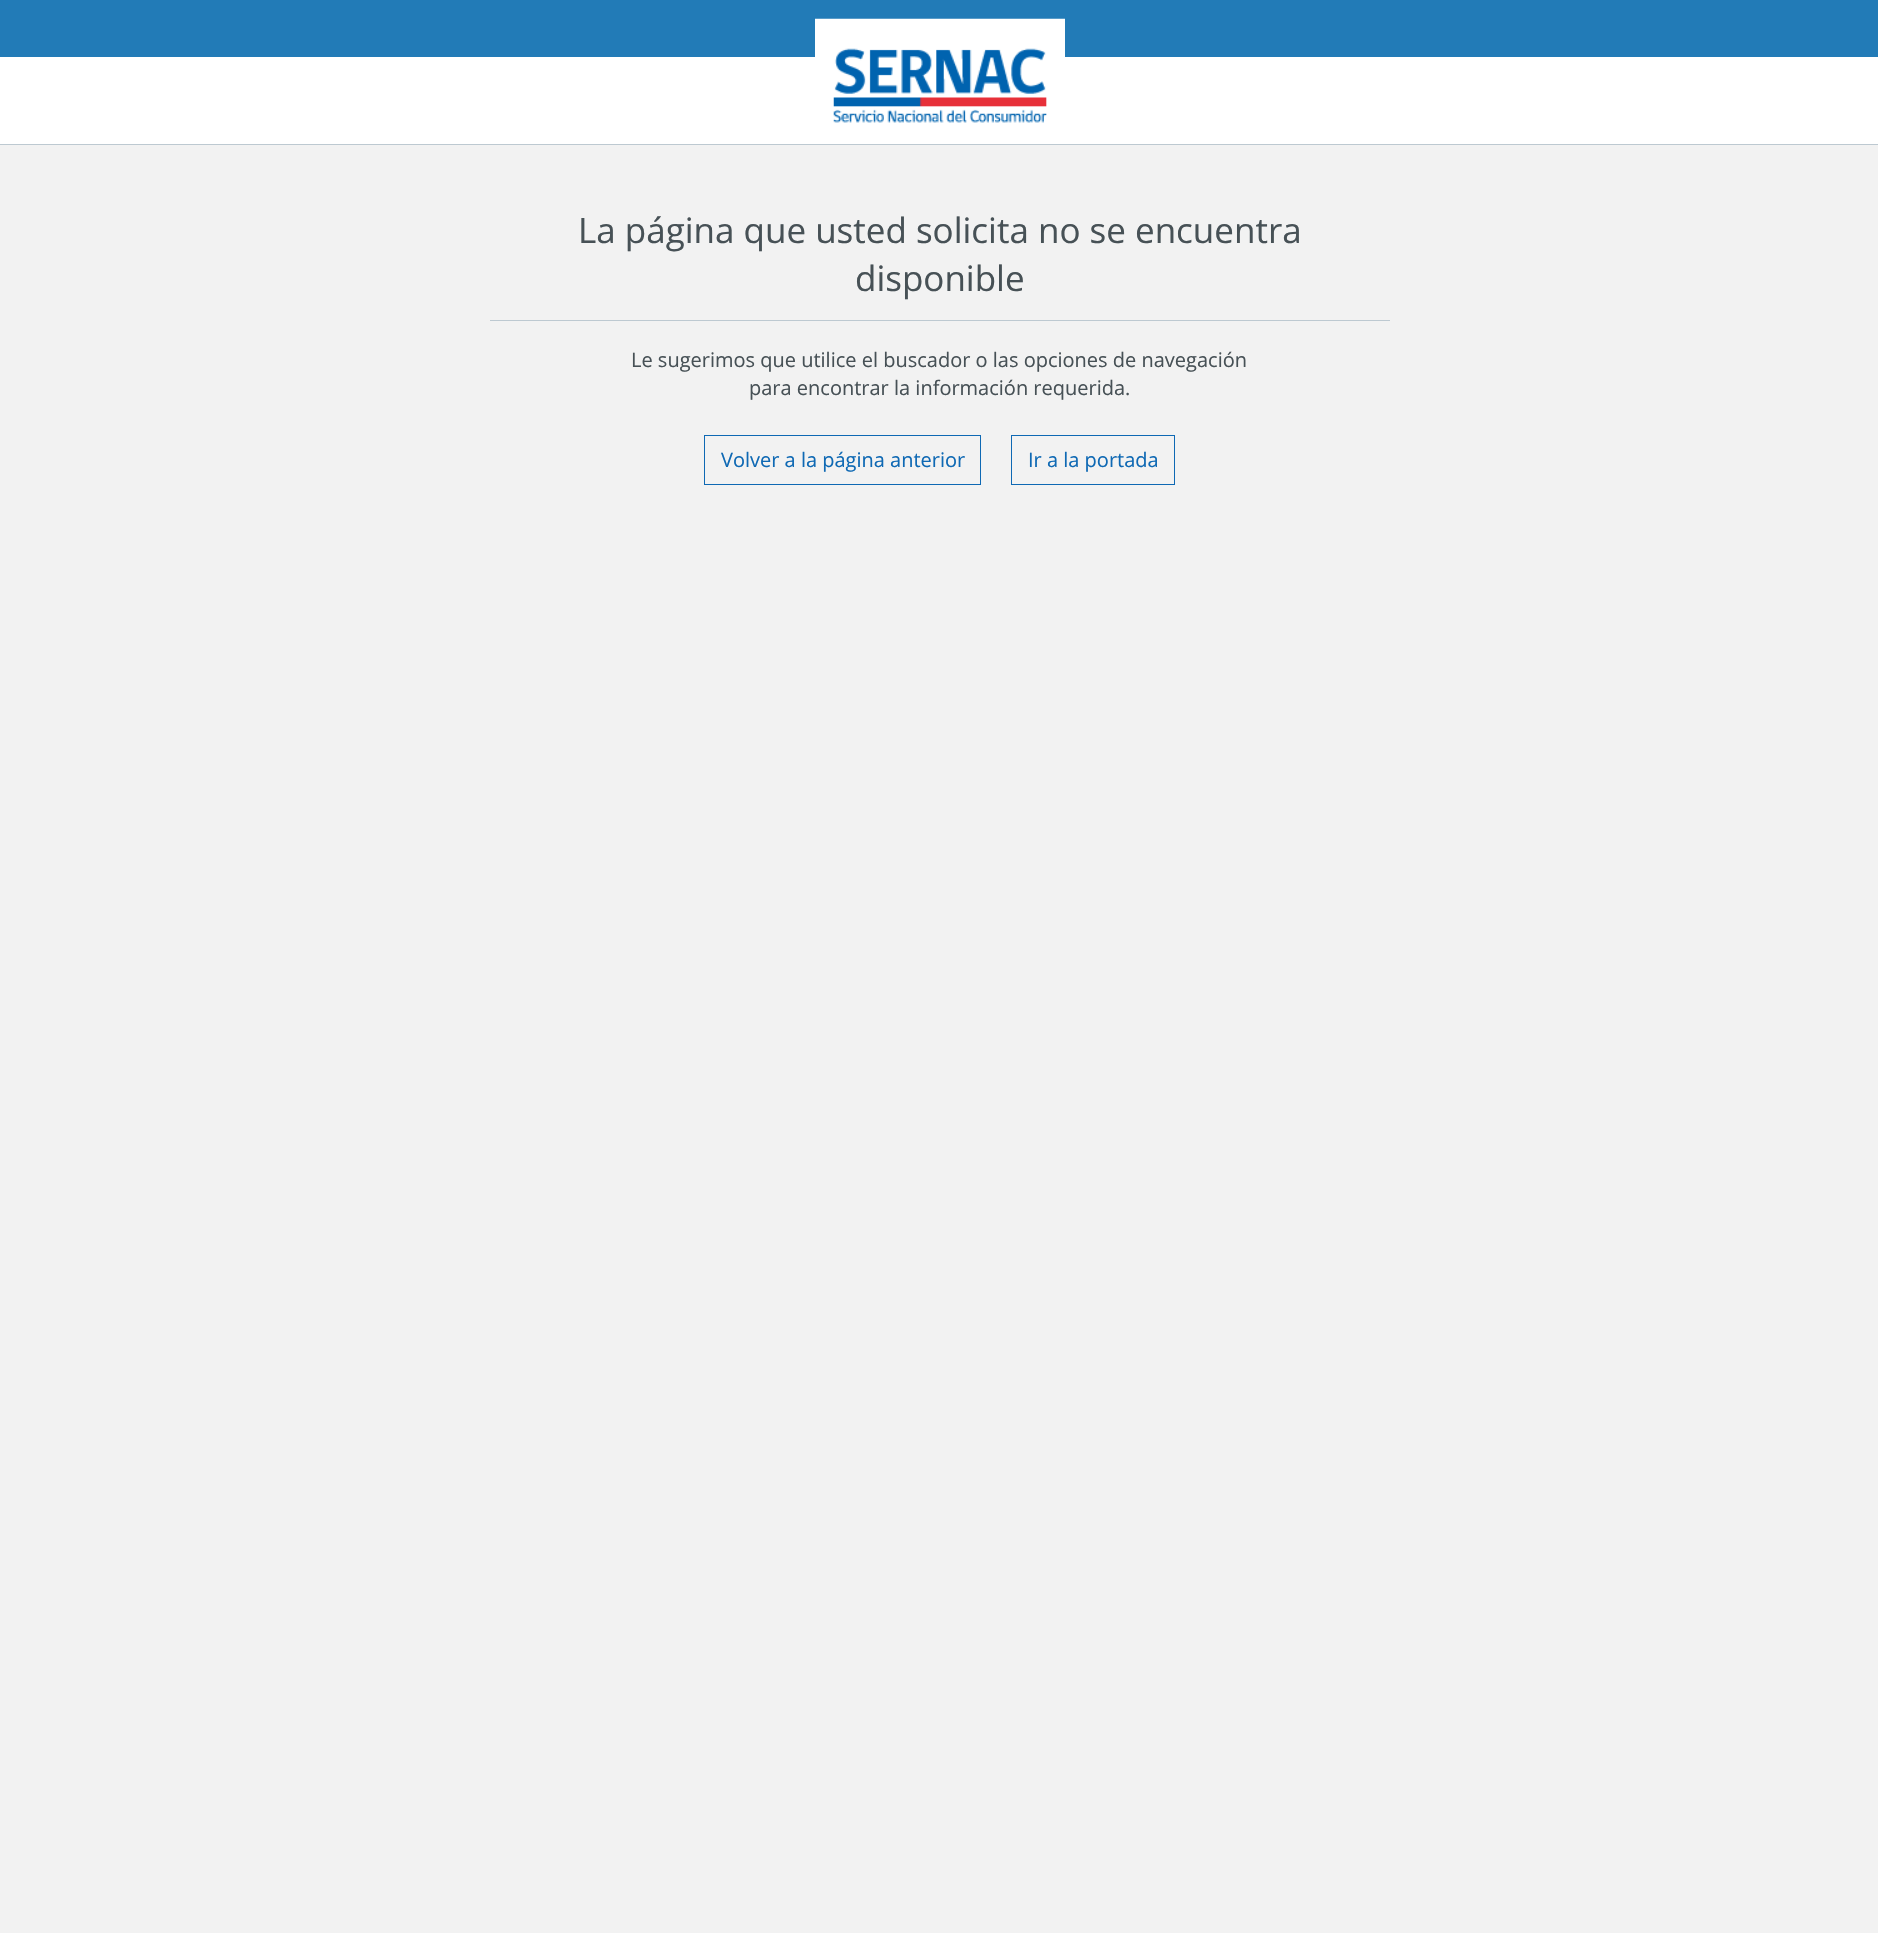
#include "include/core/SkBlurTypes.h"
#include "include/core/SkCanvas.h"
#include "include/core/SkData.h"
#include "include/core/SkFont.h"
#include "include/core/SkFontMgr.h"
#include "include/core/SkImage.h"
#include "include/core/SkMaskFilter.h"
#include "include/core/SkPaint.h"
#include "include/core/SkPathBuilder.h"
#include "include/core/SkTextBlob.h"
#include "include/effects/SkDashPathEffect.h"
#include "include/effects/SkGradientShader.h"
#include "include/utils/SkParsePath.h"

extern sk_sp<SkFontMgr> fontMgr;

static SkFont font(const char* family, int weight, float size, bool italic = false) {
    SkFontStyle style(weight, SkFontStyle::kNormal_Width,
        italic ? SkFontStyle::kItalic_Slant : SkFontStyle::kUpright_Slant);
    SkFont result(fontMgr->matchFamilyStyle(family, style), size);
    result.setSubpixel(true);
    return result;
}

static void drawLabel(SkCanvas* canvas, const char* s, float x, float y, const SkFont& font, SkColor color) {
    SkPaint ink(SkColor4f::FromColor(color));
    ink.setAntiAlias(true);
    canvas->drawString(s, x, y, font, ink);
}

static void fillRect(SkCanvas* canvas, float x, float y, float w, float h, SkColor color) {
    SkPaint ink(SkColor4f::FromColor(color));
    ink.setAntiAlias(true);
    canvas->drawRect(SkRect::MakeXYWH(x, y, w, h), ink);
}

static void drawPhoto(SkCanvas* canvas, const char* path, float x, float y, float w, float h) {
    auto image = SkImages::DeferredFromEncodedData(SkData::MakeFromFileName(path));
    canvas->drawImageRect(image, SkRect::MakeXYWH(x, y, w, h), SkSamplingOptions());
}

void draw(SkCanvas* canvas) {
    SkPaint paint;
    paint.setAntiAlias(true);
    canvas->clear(0xFFF2F2F2);
    fillRect(canvas, 0, 57, 1878, 87, 0xFFFFFFFF);
    fillRect(canvas, 0, 0, 1878, 57, 0xFF227BB7);
    fillRect(canvas, 0, 144, 1878, 1, 0xFFBDC9D1);
    drawPhoto(canvas, "assets/img1.png", 815, 18, 250, 105);
    fillRect(canvas, 490, 320, 900, 1, 0xFFBDC9D1);
    SkFont font1 = font("Open Sans", 400, 35);
    drawLabel(canvas, "La página que usted solicita no se encuentra", 578, 243, font1, 0xFF475156);
    drawLabel(canvas, "disponible", 855, 291, font1, 0xFF475156);
    SkFont font2 = font("Open Sans", 400, 20);
    drawLabel(canvas, "Le sugerimos que utilice el buscador o las opciones de navegación", 631, 367, font2, 0xFF475156);
    drawLabel(canvas, "para encontrar la información requerida.", 749, 395, font2, 0xFF475156);
    paint.setStroke(true);
    paint.setStrokeWidth(1);
    paint.setColor(0xFF0F69B4);
    canvas->drawRect(SkRect::MakeXYWH(704.5f, 435.5f, 276, 49), paint);
    drawLabel(canvas, "Volver a la página anterior", 721, 467, font2, 0xFF0F69B4);
    canvas->drawRect(SkRect::MakeXYWH(1011.5f, 435.5f, 163, 49), paint);
    drawLabel(canvas, "Ir a la portada", 1028, 467, font2, 0xFF0F69B4);
}
